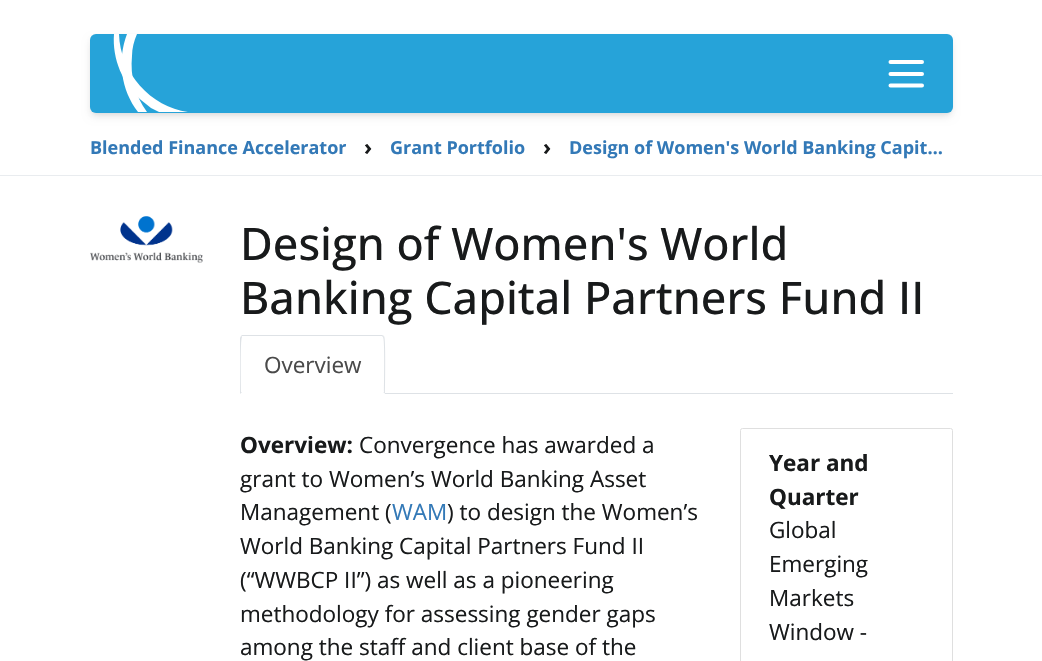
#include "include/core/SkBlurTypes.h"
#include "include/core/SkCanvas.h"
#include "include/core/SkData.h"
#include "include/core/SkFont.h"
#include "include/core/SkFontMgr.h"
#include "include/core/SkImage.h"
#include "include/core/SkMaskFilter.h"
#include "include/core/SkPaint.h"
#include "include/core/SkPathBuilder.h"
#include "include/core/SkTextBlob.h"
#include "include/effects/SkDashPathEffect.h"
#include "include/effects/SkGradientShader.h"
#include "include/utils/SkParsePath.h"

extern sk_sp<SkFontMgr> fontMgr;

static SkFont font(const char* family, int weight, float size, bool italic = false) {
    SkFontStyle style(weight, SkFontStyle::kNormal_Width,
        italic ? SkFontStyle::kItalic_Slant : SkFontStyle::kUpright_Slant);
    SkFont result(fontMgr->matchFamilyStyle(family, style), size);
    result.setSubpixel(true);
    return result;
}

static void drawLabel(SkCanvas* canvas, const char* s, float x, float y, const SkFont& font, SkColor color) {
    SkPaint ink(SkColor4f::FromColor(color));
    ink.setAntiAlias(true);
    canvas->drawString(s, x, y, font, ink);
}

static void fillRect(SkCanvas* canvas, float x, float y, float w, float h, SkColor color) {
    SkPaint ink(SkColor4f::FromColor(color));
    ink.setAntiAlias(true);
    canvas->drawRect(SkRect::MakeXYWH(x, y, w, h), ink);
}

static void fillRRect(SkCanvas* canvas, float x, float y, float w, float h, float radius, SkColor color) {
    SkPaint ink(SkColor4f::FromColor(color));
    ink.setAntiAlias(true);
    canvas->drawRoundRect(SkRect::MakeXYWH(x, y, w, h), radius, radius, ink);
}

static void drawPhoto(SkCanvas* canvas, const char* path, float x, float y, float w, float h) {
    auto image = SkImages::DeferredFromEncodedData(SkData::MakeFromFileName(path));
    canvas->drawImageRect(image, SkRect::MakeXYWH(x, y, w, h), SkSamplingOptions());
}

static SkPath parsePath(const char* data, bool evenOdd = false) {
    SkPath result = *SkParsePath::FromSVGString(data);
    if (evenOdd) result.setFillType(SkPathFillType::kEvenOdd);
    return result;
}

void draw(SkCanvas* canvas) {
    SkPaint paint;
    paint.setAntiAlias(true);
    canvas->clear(0xFFFFFFFF);
    paint.setColor(0x1A000000);
    paint.setMaskFilter(SkMaskFilter::MakeBlur(kNormal_SkBlurStyle, 2.5f));
    canvas->drawRoundRect(SkRect::MakeXYWH(93, 39, 857, 74), 3, 3, paint);
    paint.setMaskFilter(nullptr);
    paint.setMaskFilter(SkMaskFilter::MakeBlur(kNormal_SkBlurStyle, 4));
    canvas->drawRoundRect(SkRect::MakeXYWH(91, 40, 860, 76), 5, 5, paint);
    paint.setMaskFilter(nullptr);
    fillRRect(canvas, 90, 34, 863, 79, 6, 0xFF26A3D9);
    paint.setColor(0xFFFFFFFF);
    canvas->drawPath(parsePath("M132 56C132 48 134 41 137 34H127C117 60 121 90 138 112H147C135 96 130 76 132 56Z"), paint);
    canvas->drawPath(parsePath("M188 112H159L151 108L141 100C123 84 112 59 114 34H119C120 73 151 107 188 112Z"), paint);
    paint.setStroke(true);
    paint.setStrokeWidth(4);
    paint.setStrokeCap(SkPaint::kRound_Cap);
    paint.setStrokeJoin(SkPaint::kRound_Join);
    canvas->drawPath(parsePath("M890.5 74H922M890.5 62H922M890.5 85.5H922"), paint);
    fillRect(canvas, 0, 175, 1042, 1, 0xFFE9ECEF);
    SkFont font1 = font("Open Sans", 700, 18);
    drawLabel(canvas, "Blended Finance Accelerator", 90, 154, font1, 0xFF3379B7);
    SkFont font2 = font("Open Sans", 700, 22);
    drawLabel(canvas, "›", 364, 155, font2, 0xFF181A1B);
    drawLabel(canvas, "Grant Portfolio", 390, 154, font1, 0xFF3379B7);
    drawLabel(canvas, "›", 543, 155, font2, 0xFF181A1B);
    drawLabel(canvas, "Design of Women's World Banking Capit…", 569, 154, font1, 0xFF3379B7);
    drawPhoto(canvas, "assets/img1.png", 90, 216, 113, 47);
    SkFont font3 = font("Open Sans", 500, 45);
    drawLabel(canvas, "Design of Women's World", 240, 260, font3, 0xFF181A1B);
    drawLabel(canvas, "Banking Capital Partners Fund II", 240, 314, font3, 0xFF181A1B);
    fillRect(canvas, 385, 393, 568, 1, 0xFFDEE2E6);
    paint.setStroke(false);
    paint.setColor(0xFFDEE2E6);
    canvas->drawPath(parsePath("M242 335L241 336L242 337V336H382L383 337L384 336L382 335Z"), paint);
    canvas->drawPath(parsePath("M385 394C385 387 386 338 384 336L383 337C385 338 384 386 384 392H383Z"), paint);
    paint.setColor(0xFFFFFFFF);
    canvas->drawPath(parsePath("M385 394H240L242 392H383Z"), paint);
    paint.setColor(0xFFDEE2E6);
    canvas->drawPath(parsePath("M240 394L242 392H241C241 386 240 339 242 337L241 336L240 338Z"), paint);
    SkFont font4 = font("Open Sans", 400, 22.5f);
    drawLabel(canvas, "Overview", 264, 373, font4, 0xFF4A4A4A);
    SkFont font5 = font("Open Sans", 700, 22.5f);
    drawLabel(canvas, "Overview:", 240, 453, font5, 0xFF181A1B);
    drawLabel(canvas, "Convergence has awarded a", 359, 453, font4, 0xFF181A1B);
    drawLabel(canvas, "grant to Women’s World Banking Asset", 240, 487, font4, 0xFF181A1B);
    drawLabel(canvas, "Management (", 240, 520, font4, 0xFF181A1B);
    drawLabel(canvas, "WAM", 392, 520, font4, 0xFF3379B7);
    drawLabel(canvas, ") to design the Women’s", 447, 520, font4, 0xFF181A1B);
    drawLabel(canvas, "World Banking Capital Partners Fund II", 240, 554, font4, 0xFF181A1B);
    drawLabel(canvas, "(“WWBCP II”) as well as a pioneering", 240, 588, font4, 0xFF181A1B);
    drawLabel(canvas, "methodology for assessing gender gaps", 240, 622, font4, 0xFF181A1B);
    drawLabel(canvas, "among the staff and client base of the", 240, 655, font4, 0xFF181A1B);
    paint.setStroke(true);
    paint.setStrokeWidth(1);
    paint.setStrokeCap(SkPaint::kButt_Cap);
    paint.setStrokeJoin(SkPaint::kMiter_Join);
    paint.setColor(0xFFDFDFDF);
    canvas->drawRoundRect(SkRect::MakeXYWH(740.5f, 428.5f, 212, 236), 2, 2, paint);
    drawLabel(canvas, "Year and", 769, 471, font5, 0xFF181A1B);
    drawLabel(canvas, "Quarter", 769, 505, font5, 0xFF181A1B);
    drawLabel(canvas, "Global", 769, 538, font4, 0xFF181A1B);
    drawLabel(canvas, "Emerging", 769, 572, font4, 0xFF181A1B);
    drawLabel(canvas, "Markets", 769, 606, font4, 0xFF181A1B);
    drawLabel(canvas, "Window -", 769, 640, font4, 0xFF181A1B);
}
